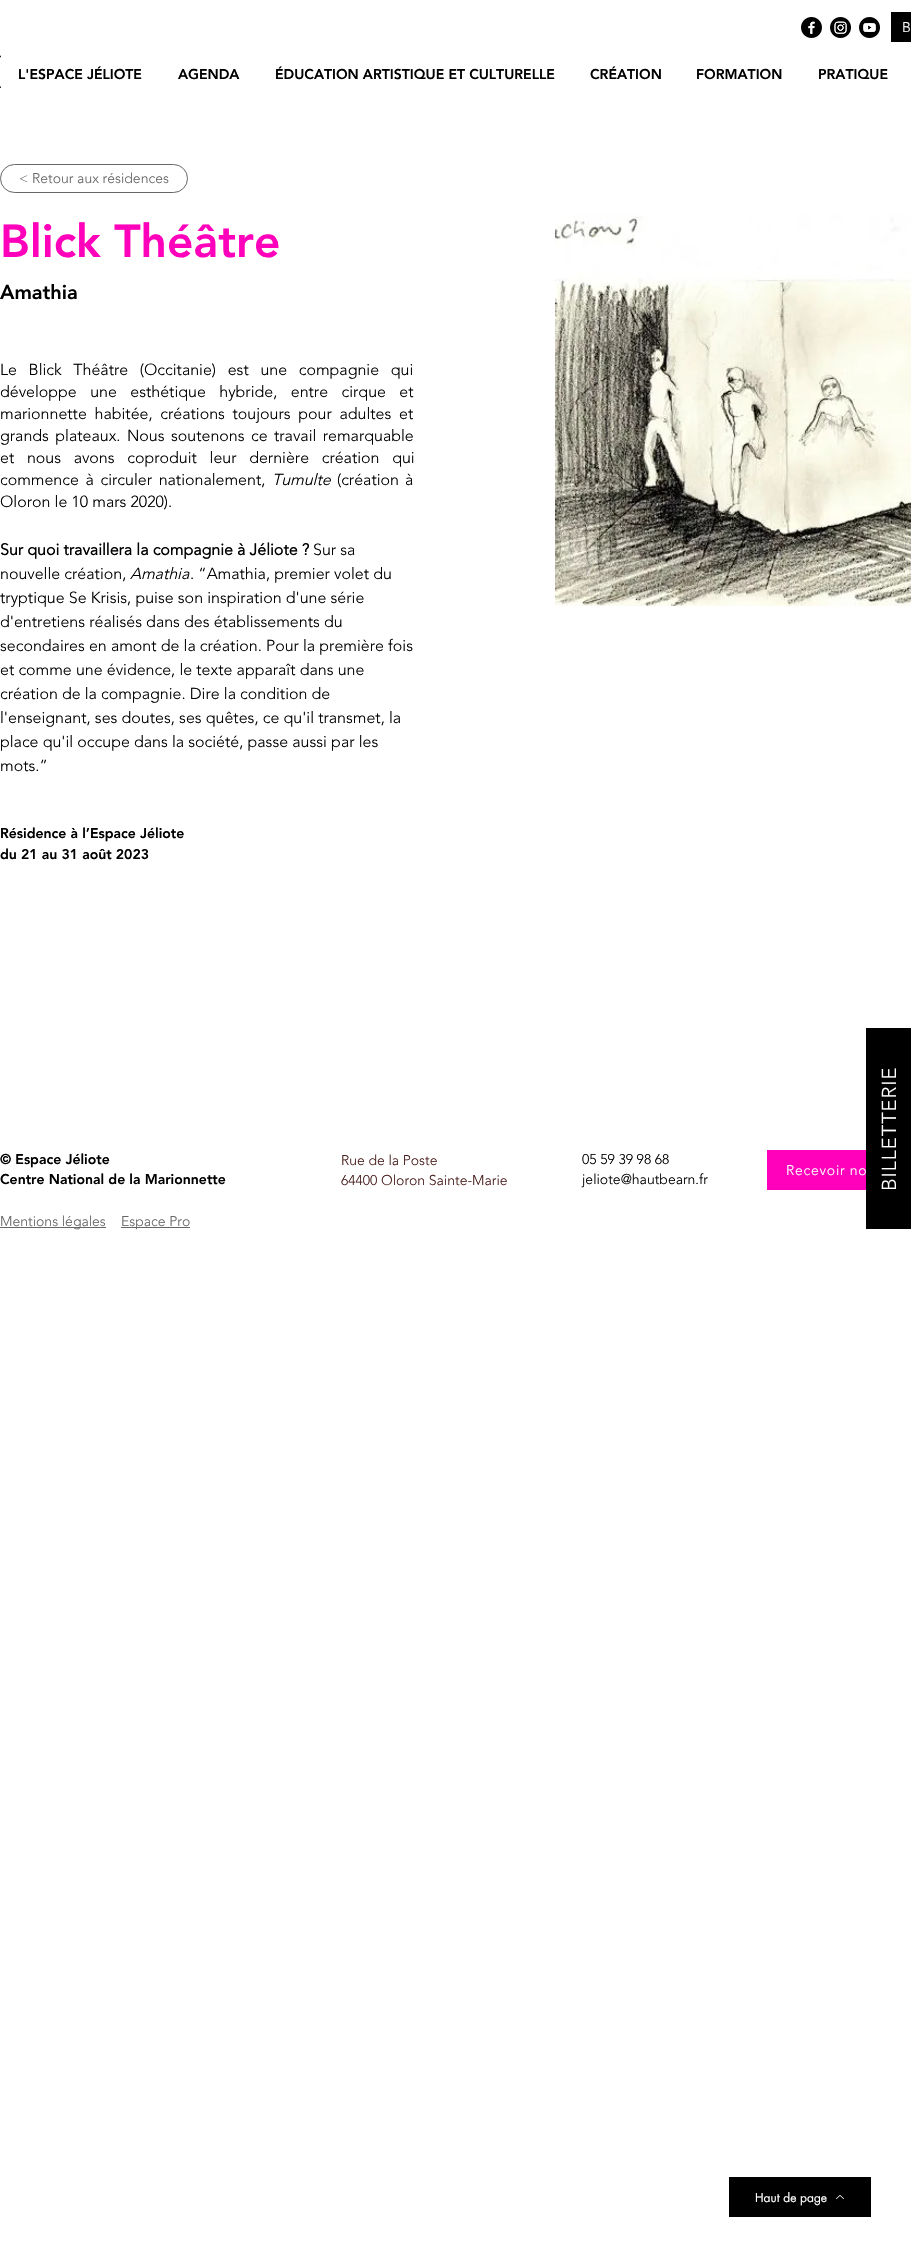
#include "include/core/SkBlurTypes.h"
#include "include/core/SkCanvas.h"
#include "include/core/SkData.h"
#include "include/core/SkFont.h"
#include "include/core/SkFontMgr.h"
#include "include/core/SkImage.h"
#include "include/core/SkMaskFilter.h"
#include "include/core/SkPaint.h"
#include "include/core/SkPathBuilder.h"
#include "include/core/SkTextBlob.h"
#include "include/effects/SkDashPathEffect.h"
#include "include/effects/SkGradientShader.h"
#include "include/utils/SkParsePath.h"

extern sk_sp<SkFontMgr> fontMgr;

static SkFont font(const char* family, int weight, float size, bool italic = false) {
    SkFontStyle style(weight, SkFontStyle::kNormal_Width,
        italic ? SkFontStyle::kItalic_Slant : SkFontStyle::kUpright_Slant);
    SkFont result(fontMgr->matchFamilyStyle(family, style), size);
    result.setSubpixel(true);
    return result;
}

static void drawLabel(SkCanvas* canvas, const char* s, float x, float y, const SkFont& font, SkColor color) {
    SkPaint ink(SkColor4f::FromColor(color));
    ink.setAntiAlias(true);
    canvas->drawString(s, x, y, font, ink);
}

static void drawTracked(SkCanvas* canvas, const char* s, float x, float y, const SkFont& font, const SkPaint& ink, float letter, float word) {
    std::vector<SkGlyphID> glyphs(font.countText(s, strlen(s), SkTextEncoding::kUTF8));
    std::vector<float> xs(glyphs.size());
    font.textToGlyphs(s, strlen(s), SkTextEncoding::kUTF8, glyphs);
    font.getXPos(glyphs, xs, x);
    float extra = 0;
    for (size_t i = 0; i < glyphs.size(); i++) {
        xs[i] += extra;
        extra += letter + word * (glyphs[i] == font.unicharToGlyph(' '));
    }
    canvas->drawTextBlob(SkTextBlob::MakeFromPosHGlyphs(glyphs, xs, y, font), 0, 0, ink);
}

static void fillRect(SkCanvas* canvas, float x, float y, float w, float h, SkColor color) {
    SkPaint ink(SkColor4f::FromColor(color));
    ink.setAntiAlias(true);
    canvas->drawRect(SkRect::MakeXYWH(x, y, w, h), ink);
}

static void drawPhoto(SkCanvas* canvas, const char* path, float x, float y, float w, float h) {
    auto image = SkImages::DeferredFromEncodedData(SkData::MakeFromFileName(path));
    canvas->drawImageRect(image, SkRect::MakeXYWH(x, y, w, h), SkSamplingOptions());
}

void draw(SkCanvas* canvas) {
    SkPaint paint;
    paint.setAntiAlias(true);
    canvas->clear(0xFFFFFFFF);
    drawPhoto(canvas, "assets/img1.png", 801, 17, 21, 21);
    drawPhoto(canvas, "assets/img2.png", 830, 17, 21, 21);
    drawPhoto(canvas, "assets/img3.png", 859, 17, 21, 21);
    fillRect(canvas, 891, 12, 20, 30, 0xFF000000);
    SkFont font1 = font("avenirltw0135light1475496", 300, 14);
    paint.setColor(0xFFFFFFFF);
    drawTracked(canvas, "B", 902, 32, font1, paint, 0.75f, 0);
    drawPhoto(canvas, "assets/img4.png", 0, 55, 1, 33);
    SkFont font2 = font("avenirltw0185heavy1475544", 900, 14);
    drawLabel(canvas, "L'ESPACE JÉLIOTE", 18, 79, font2, 0xFF000000);
    drawLabel(canvas, "AGENDA", 178, 79, font2, 0xFF000000);
    drawLabel(canvas, "ÉDUCATION ARTISTIQUE ET CULTURELLE", 275, 79, font2, 0xFF000000);
    drawLabel(canvas, "CRÉATION", 590, 79, font2, 0xFF000000);
    drawLabel(canvas, "FORMATION", 696, 79, font2, 0xFF000000);
    drawLabel(canvas, "PRATIQUE", 818, 79, font2, 0xFF000000);
    paint.setStroke(true);
    paint.setStrokeWidth(1);
    paint.setColor(0xFF666666);
    canvas->drawRoundRect(SkRect::MakeXYWH(0.5f, 164.5f, 187, 28), 14, 14, paint);
    drawLabel(canvas, "< Retour aux résidences", 19, 183, font1, 0xFF666666);
    SkFont font3 = font("avenirltw0185heavy1475544", 900, 46);
    drawLabel(canvas, "Blick Théâtre", 0, 257, font3, 0xFFFF00BB);
    SkFont font4 = font("avenirltw0185heavy1475544", 900, 20);
    drawLabel(canvas, "Amathia", 0, 299, font4, 0xFF000000);
    SkFont font5 = font("avenirltw0135light1475496", 300, 16);
    paint.setStroke(false);
    paint.setColor(0xFF000000);
    drawTracked(canvas, "Le Blick Théâtre (Occitanie) est une compagnie qui", 0, 375, font5, paint, 0, 7.5f);
    drawTracked(canvas, "développe une esthétique hybride, entre cirque et", 0, 397, font5, paint, 0, 9.25f);
    drawTracked(canvas, "marionnette habitée, créations toujours pour adultes et", 0, 419, font5, paint, 0, 3.5f);
    drawTracked(canvas, "grands plateaux. Nous soutenons ce travail remarquable", 0, 441, font5, paint, 0, 2.25f);
    drawTracked(canvas, "et nous avons coproduit leur dernière création qui", 0, 463, font5, paint, 0, 8.5f);
    drawTracked(canvas, "commence à circuler nationalement,", 0, 485, font5, paint, 0, 2.5f);
    SkFont font6 = font("avenirltw0135light1475496", 300, 16, true);
    drawLabel(canvas, "Tumulte", 272, 485, font6, 0xFF000000);
    drawTracked(canvas, "(création à", 337, 485, font5, paint, 0, 2);
    drawLabel(canvas, "Oloron le 10 mars 2020).", 0, 507, font5, 0xFF000000);
    SkFont font7 = font("avenirltw0135light1475496", 700, 16);
    drawLabel(canvas, "Sur quoi travaillera la compagnie à Jéliote ?", 0, 555, font7, 0xFF000000);
    drawLabel(canvas, "Sur sa", 313, 555, font5, 0xFF000000);
    drawLabel(canvas, "nouvelle création,", 0, 579, font5, 0xFF000000);
    drawLabel(canvas, "Amathia", 130, 579, font6, 0xFF000000);
    drawLabel(canvas, ". “Amathia, premier volet du", 190, 579, font5, 0xFF000000);
    drawLabel(canvas, "tryptique Se Krisis, puise son inspiration d'une série", 0, 603, font5, 0xFF000000);
    drawLabel(canvas, "d'entretiens réalisés dans des établissements du", 0, 627, font5, 0xFF000000);
    drawLabel(canvas, "secondaires en amont de la création. Pour la première fois", 0, 651, font5, 0xFF000000);
    drawLabel(canvas, "et comme une évidence, le texte apparaît dans une", 0, 675, font5, 0xFF000000);
    drawLabel(canvas, "création de la compagnie. Dire la condition de", 0, 699, font5, 0xFF000000);
    drawLabel(canvas, "l'enseignant, ses doutes, ses quêtes, ce qu'il transmet, la", 0, 723, font5, 0xFF000000);
    drawLabel(canvas, "place qu'il occupe dans la société, passe aussi par les", 0, 747, font5, 0xFF000000);
    drawLabel(canvas, "mots.”", 0, 771, font5, 0xFF000000);
    drawLabel(canvas, "Résidence à l’Espace Jéliote", 0, 838, font2, 0xFF000000);
    drawLabel(canvas, "du 21 au 31 août 2023", 0, 859, font2, 0xFF000000);
    drawPhoto(canvas, "assets/img5.png", 555, 214, 356, 392);
    drawLabel(canvas, "© Espace Jéliote", 0, 1164, font2, 0xFF000000);
    drawLabel(canvas, "Centre National de la Marionnette", 0, 1184, font2, 0xFF000000);
    drawLabel(canvas, "Rue de la Poste", 341, 1165, font1, 0xFF4A211F);
    drawLabel(canvas, "64400 Oloron Sainte-Marie", 341, 1185, font1, 0xFF4A211F);
    drawLabel(canvas, "05 59 39 98 68", 582, 1164, font1, 0xFF000000);
    fillRect(canvas, 767, 1150, 99, 40, 0xFFFF00BB);
    paint.setColor(0xFFFFFFFF);
    drawTracked(canvas, "Recevoir no", 786, 1175, font1, paint, 0.75f, 0);
    drawLabel(canvas, "jeliote@hautbearn.fr", 582, 1184, font1, 0xFF000000);
    fillRect(canvas, 0, 1227, 106, 1, 0xFF666666);
    drawLabel(canvas, "Mentions légales", 0, 1226, font1, 0xFF666666);
    fillRect(canvas, 121, 1227, 69, 1, 0xFF666666);
    drawLabel(canvas, "Espace Pro", 121, 1226, font1, 0xFF666666);
    fillRect(canvas, 866, 1028, 45, 201, 0xFF000000);
    SkFont font8 = font("avenirltw0135light1475496", 300, 20);
    canvas->save();
    canvas->rotate(-90, 896, 1191);
    drawTracked(canvas, "BILLETTERIE", 896, 1191, font8, paint, 1, 0);
    canvas->restore();
    fillRect(canvas, 729, 2177, 142, 40, 0xFF000000);
    SkFont font9 = font("futura", 400, 12);
    drawLabel(canvas, "Haut de page", 755, 2202, font9, 0xFFFFFFFF);
    drawPhoto(canvas, "assets/img6.png", 836, 2195, 8, 5);
}
